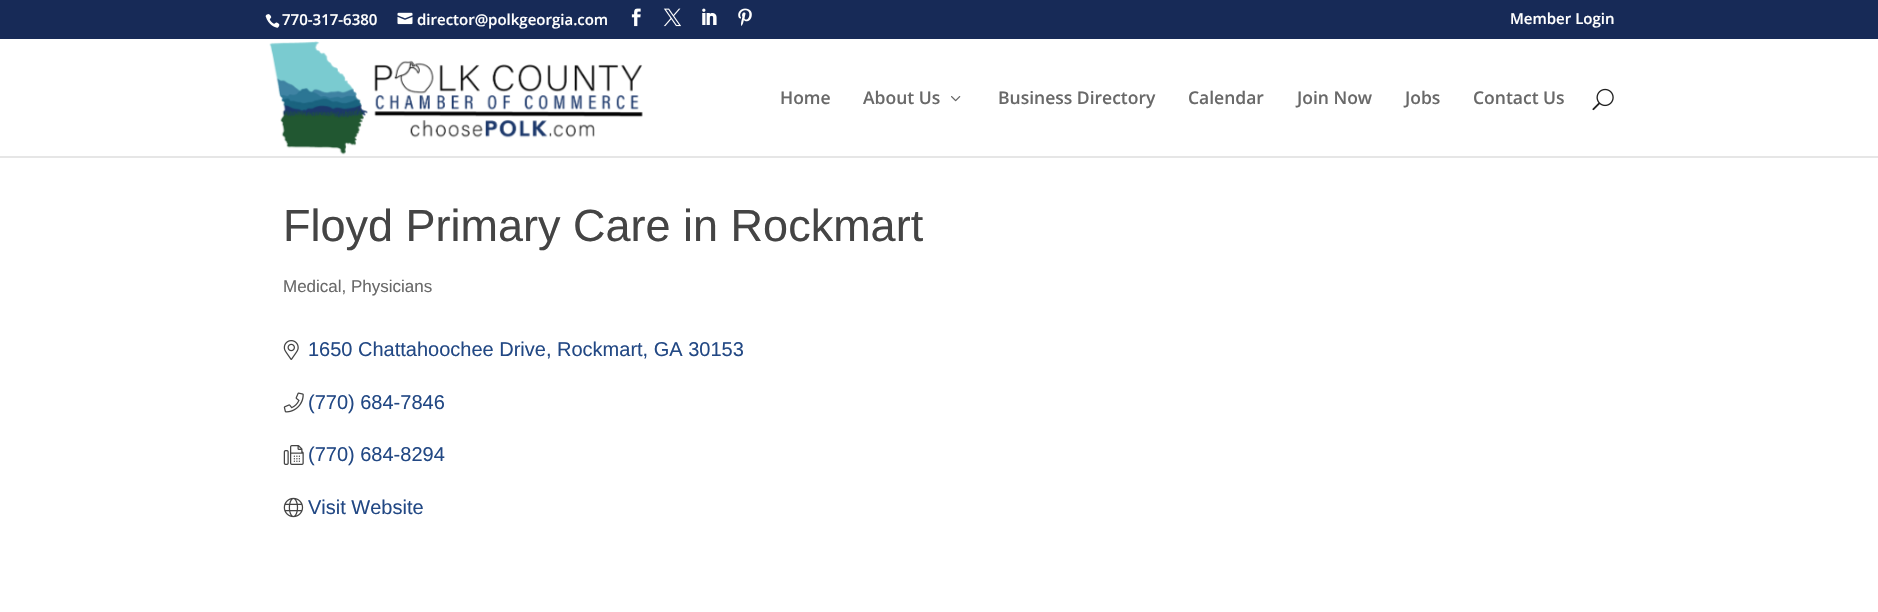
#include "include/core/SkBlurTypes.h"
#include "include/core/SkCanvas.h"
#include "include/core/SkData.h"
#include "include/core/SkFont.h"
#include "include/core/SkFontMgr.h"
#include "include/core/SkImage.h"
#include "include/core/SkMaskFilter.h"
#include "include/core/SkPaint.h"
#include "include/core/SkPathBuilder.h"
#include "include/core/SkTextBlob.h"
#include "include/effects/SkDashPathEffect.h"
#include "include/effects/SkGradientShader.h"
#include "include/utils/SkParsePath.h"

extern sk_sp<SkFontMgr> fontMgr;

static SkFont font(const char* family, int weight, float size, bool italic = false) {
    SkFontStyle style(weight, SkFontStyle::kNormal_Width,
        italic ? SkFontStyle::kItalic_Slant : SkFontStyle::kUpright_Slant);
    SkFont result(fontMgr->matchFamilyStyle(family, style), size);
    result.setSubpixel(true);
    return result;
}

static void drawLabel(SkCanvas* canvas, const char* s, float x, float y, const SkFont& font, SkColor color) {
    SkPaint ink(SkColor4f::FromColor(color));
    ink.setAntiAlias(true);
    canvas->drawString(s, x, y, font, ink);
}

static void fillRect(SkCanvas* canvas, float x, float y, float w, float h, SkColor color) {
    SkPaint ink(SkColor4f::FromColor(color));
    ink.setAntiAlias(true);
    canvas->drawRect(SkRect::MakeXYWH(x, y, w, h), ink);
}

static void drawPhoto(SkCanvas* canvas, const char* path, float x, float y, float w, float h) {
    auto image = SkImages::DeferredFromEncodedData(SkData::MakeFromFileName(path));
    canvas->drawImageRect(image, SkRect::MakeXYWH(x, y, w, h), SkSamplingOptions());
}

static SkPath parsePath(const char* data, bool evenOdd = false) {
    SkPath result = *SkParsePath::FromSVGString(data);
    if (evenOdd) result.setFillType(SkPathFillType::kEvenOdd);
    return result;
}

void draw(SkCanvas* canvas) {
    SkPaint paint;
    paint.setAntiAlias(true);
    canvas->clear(0xFFFFFFFF);
    fillRect(canvas, 0, 0, 1878, 39, 0xFF172A57);
    drawPhoto(canvas, "assets/img1.png", 265, 14, 15, 14);
    SkFont font1 = font("Open Sans", 600, 15);
    drawLabel(canvas, "770-317-6380", 282, 25, font1, 0xFFFFFFFF);
    drawPhoto(canvas, "assets/img2.png", 397, 12, 16, 13);
    drawLabel(canvas, "director@polkgeorgia.com", 417, 25, font1, 0xFFFFFFFF);
    drawPhoto(canvas, "assets/img3.png", 631, 8, 10, 19);
    drawPhoto(canvas, "assets/img4.png", 663, 8, 18, 19);
    drawPhoto(canvas, "assets/img5.png", 702, 8, 15, 17);
    drawPhoto(canvas, "assets/img6.png", 738, 8, 14, 18);
    drawLabel(canvas, "Member Login", 1510, 24, font1, 0xFFFFFFFF);
    paint.setColor(0xFFE6E6E6);
    canvas->drawPath(parsePath("M0 156V158H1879V40V156Z"), paint);
    drawPhoto(canvas, "assets/img7.png", 269, 41, 374, 114);
    SkFont font2 = font("Open Sans", 600, 17.5f);
    drawLabel(canvas, "Home", 780, 104, font2, 0xFF696969);
    drawLabel(canvas, "About Us", 863, 104, font2, 0xFF696969);
    drawPhoto(canvas, "assets/img8.png", 951, 96, 10, 6);
    drawLabel(canvas, "Business Directory", 998, 104, font2, 0xFF696969);
    drawLabel(canvas, "Calendar", 1188, 104, font2, 0xFF696969);
    drawLabel(canvas, "Join Now", 1297, 104, font2, 0xFF696969);
    drawLabel(canvas, "Jobs", 1405, 104, font2, 0xFF696969);
    drawLabel(canvas, "Contact Us", 1473, 104, font2, 0xFF696969);
    drawPhoto(canvas, "assets/img9.png", 1592, 88, 22, 23);
    SkFont font3 = font("Liberation Sans", 400, 45);
    drawLabel(canvas, "Floyd Primary Care in Rockmart", 283, 241, font3, 0xFF444444);
    SkFont font4 = font("Liberation Sans", 400, 17);
    drawLabel(canvas, "Medical, Physicians", 283, 292, font4, 0xFF696969);
    drawPhoto(canvas, "assets/img10.png", 283, 340, 16, 20);
    SkFont font5 = font("Liberation Sans", 400, 20);
    drawLabel(canvas, "1650 Chattahoochee Drive, Rockmart, GA 30153", 308, 356, font5, 0xFF224884);
    drawPhoto(canvas, "assets/img11.png", 283, 392, 21, 21);
    drawLabel(canvas, "(770) 684-7846", 308, 409, font5, 0xFF224884);
    drawPhoto(canvas, "assets/img12.png", 283, 445, 21, 20);
    drawLabel(canvas, "(770) 684-8294", 308, 461, font5, 0xFF224884);
    drawPhoto(canvas, "assets/img13.png", 283, 497, 21, 21);
    drawLabel(canvas, "Visit Website", 308, 514, font5, 0xFF224884);
}
